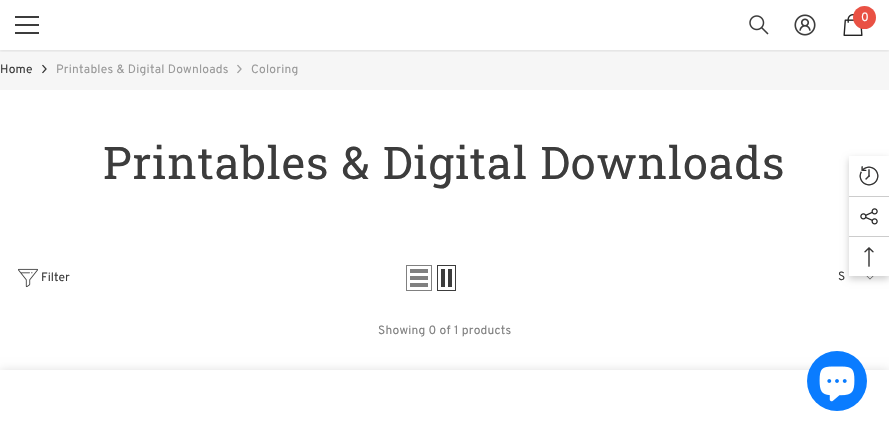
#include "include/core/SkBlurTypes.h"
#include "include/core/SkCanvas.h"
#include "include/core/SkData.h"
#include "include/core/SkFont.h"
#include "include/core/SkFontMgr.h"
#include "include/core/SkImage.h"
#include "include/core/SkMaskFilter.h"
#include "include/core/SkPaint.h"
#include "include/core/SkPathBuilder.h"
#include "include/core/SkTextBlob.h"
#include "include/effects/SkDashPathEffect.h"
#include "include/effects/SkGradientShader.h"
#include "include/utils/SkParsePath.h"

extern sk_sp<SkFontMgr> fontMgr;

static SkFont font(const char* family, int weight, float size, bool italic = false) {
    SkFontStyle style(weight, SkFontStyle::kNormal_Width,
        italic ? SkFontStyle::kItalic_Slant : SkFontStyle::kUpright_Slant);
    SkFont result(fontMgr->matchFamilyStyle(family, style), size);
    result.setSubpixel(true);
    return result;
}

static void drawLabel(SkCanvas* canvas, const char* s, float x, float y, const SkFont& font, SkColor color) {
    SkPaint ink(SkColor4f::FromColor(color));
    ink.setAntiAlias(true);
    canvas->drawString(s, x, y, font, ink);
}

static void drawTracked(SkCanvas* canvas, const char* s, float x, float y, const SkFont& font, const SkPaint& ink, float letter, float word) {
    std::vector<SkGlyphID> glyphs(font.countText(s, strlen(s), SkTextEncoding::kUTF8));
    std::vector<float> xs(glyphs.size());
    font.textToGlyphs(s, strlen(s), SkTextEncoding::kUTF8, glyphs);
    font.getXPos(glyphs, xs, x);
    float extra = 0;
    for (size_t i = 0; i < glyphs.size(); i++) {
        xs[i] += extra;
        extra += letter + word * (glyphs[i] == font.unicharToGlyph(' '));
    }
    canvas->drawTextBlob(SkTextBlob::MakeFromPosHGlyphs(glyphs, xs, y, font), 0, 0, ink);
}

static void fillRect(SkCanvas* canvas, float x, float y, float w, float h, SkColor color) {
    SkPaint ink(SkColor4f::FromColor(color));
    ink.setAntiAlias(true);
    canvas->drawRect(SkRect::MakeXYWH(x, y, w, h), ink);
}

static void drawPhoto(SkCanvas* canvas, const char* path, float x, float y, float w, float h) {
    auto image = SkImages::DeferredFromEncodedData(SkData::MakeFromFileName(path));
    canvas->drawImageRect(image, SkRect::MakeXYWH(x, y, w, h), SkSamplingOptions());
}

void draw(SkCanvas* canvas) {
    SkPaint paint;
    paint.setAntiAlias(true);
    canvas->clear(0xFFFFFFFF);
    fillRect(canvas, 0, 50, 889, 40, 0xFFF6F6F6);
    canvas->save();
    canvas->clipRect(SkRect::MakeXYWH(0, 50, 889, 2));
    paint.setColor(0x1A000000);
    paint.setMaskFilter(SkMaskFilter::MakeBlur(kNormal_SkBlurStyle, 1.5f));
    canvas->drawRect(SkRect::MakeXYWH(0, 1, 889, 50), paint);
    paint.setMaskFilter(nullptr);
    canvas->restore();
    fillRect(canvas, 15, 24, 24, 2, 0xFF3C3C3C);
    fillRect(canvas, 15, 16, 24, 2, 0xFF3C3C3C);
    fillRect(canvas, 15, 32, 24, 2, 0xFF3C3C3C);
    drawPhoto(canvas, "assets/img1.png", 749, 15, 20, 20);
    drawPhoto(canvas, "assets/img2.png", 794, 14, 22, 22);
    drawPhoto(canvas, "assets/img3.png", 843, 14, 20, 22);
    paint.setColor(0xFFE95144);
    canvas->drawCircle(864.5f, 17.5f, 11.5f, paint);
    SkFont font1 = font("Overpass", 400, 12);
    drawLabel(canvas, "0", 861, 21, font1, 0xFFFFFFFF);
    paint.setColor(0xFF3C3C3C);
    drawTracked(canvas, "Home", 0, 73, font1, paint, 0.25f, 0);
    drawPhoto(canvas, "assets/img4.png", 42, 64, 5, 10);
    paint.setColor(0xFF999999);
    drawTracked(canvas, "Printables & Digital Downloads", 56, 73, font1, paint, 0.25f, 0);
    drawPhoto(canvas, "assets/img5.png", 237, 64, 5, 10);
    drawTracked(canvas, "Coloring", 251, 73, font1, paint, 0.25f, 0);
    SkFont font2 = font("Roboto Slab", 400, 45);
    paint.setColor(0xFF3C3C3C);
    drawTracked(canvas, "Printables & Digital Downloads", 103, 179, font2, paint, 0.9f, 0);
    drawPhoto(canvas, "assets/img6.png", 18, 268, 20, 20);
    drawLabel(canvas, "Filter", 41, 281, font1, 0xFF3C3C3C);
    paint.setStroke(true);
    paint.setStrokeWidth(1);
    paint.setColor(0xFF808080);
    canvas->drawRect(SkRect::MakeXYWH(406.5f, 265.5f, 25, 25), paint);
    fillRect(canvas, 410, 283, 18, 4, 0xFF808080);
    fillRect(canvas, 410, 276, 18, 4, 0xFF808080);
    fillRect(canvas, 410, 269, 18, 4, 0xFF808080);
    paint.setColor(0xFF3C3C3C);
    canvas->drawRect(SkRect::MakeXYWH(437.5f, 265.5f, 18, 25), paint);
    fillRect(canvas, 448, 269, 4, 18, 0xFF3C3C3C);
    fillRect(canvas, 441, 269, 4, 18, 0xFF3C3C3C);
    drawLabel(canvas, "S", 838, 280, font1, 0xFF3C3C3C);
    drawPhoto(canvas, "assets/img7.png", 866, 276, 8, 4);
    paint.setStroke(false);
    paint.setColor(0xFF808080);
    drawTracked(canvas, "Showing 0 of 1 products", 378, 334, font1, paint, 0.25f, 0);
    paint.setColor(0x1F000000);
    paint.setMaskFilter(SkMaskFilter::MakeBlur(kNormal_SkBlurStyle, 4.5f));
    canvas->drawRect(SkRect::MakeXYWH(0, 370, 889, 62), paint);
    paint.setMaskFilter(nullptr);
    fillRect(canvas, 0, 370, 889, 62, 0xFFFFFFFF);
    paint.setColor(0x33000000);
    paint.setMaskFilter(SkMaskFilter::MakeBlur(kNormal_SkBlurStyle, 3.5f));
    canvas->drawRect(SkRect::MakeXYWH(849, 159, 40, 120), paint);
    paint.setMaskFilter(nullptr);
    fillRect(canvas, 849, 156, 40, 120, 0xFFFFFFFF);
    drawPhoto(canvas, "assets/img8.png", 859, 166, 20, 20);
    fillRect(canvas, 849, 196, 40, 1, 0xFFCCCCCC);
    drawPhoto(canvas, "assets/img9.png", 860, 208, 18, 17);
    fillRect(canvas, 849, 236, 40, 1, 0xFFCCCCCC);
    drawPhoto(canvas, "assets/img10.png", 864, 247, 10, 20);
    paint.setColor(0xFF0A7CFF);
    canvas->drawCircle(837, 381, 30, paint);
    drawPhoto(canvas, "assets/img11.png", 819, 366, 36, 36);
}
